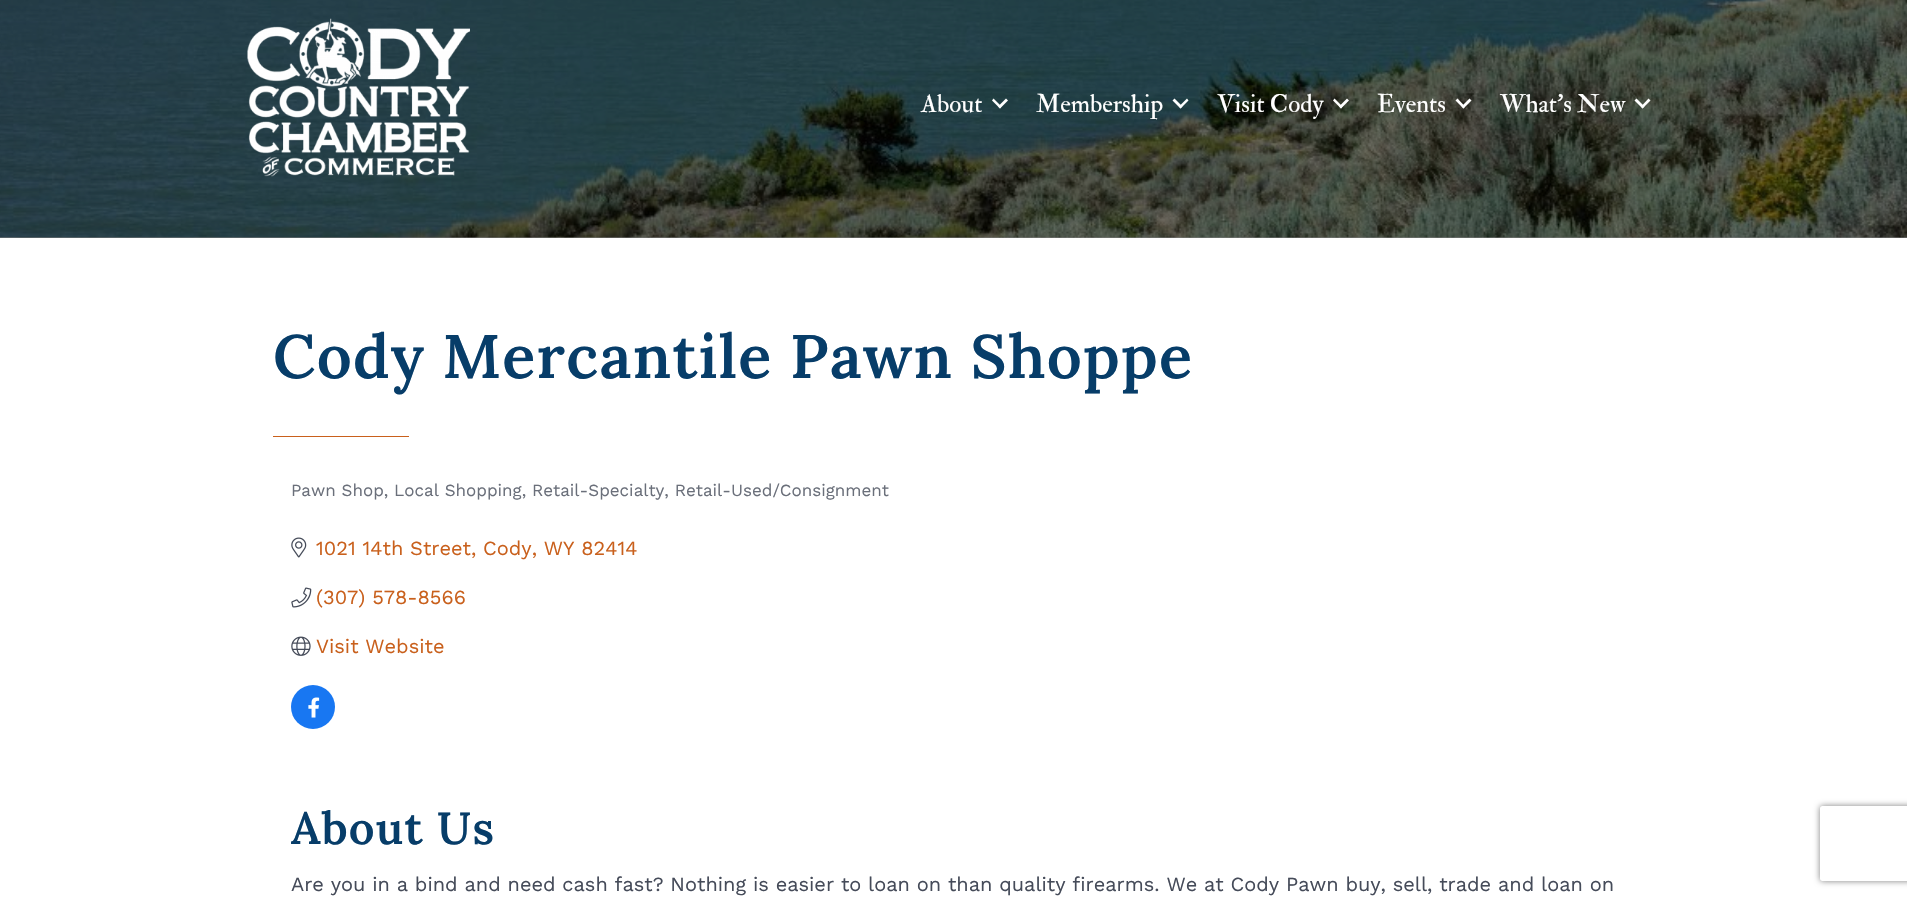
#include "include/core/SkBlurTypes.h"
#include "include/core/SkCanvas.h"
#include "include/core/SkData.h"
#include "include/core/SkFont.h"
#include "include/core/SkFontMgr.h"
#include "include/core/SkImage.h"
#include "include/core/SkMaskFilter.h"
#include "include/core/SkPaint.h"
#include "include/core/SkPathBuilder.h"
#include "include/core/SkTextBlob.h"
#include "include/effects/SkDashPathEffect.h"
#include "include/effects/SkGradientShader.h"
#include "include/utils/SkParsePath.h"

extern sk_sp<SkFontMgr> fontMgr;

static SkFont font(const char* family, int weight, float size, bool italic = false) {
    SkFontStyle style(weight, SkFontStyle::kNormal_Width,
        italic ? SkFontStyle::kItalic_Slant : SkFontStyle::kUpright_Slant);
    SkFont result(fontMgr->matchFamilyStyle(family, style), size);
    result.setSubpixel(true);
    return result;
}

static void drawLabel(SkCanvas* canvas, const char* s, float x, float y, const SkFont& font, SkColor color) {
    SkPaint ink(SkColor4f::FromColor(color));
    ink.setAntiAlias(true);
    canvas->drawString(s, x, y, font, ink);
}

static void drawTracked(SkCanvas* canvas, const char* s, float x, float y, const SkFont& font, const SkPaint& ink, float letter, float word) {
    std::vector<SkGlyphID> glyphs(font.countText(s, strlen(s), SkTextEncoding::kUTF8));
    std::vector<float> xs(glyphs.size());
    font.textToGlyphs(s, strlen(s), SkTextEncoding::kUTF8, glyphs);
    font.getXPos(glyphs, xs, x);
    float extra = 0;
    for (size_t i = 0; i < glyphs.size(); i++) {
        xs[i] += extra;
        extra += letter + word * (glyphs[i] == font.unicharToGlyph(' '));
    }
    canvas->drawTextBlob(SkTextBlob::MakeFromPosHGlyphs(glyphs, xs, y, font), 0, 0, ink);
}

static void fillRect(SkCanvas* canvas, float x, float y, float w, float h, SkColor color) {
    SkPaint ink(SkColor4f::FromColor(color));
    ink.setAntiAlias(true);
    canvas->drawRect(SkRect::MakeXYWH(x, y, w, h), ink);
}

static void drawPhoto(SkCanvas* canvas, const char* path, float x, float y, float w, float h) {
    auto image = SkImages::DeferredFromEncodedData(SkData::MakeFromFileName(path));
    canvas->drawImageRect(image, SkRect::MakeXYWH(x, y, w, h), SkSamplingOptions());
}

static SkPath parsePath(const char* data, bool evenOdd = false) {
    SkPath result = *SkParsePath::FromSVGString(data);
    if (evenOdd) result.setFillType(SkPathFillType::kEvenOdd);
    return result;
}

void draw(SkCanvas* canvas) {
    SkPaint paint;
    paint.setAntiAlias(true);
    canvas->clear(0xFFFFFFFF);
    fillRect(canvas, 0, 237, 1907, 1, 0xFF808080);
    drawPhoto(canvas, "assets/img2.png", 0, 0, 1907, 238);
    drawPhoto(canvas, "assets/img1.png", 247, 18, 223, 159);
    SkFont font1 = font("IM FELL Double Pica", 400, 25);
    drawLabel(canvas, "About", 921, 112, font1, 0xFFFFFFFF);
    paint.setColor(0xFFFFFFFF);
    canvas->drawPath(parsePath("M1006 98.5L1008 100.5L1000 108.5L998 106.5Z"), paint);
    canvas->drawPath(parsePath("M993.5 98.5L1001.5 106.5L1000 108.5L992 100.5Z"), paint);
    drawLabel(canvas, "Membership", 1036, 112, font1, 0xFFFFFFFF);
    canvas->drawPath(parsePath("M1187 98.5L1188.5 100.5L1180.5 108.5L1179 106.5Z"), paint);
    canvas->drawPath(parsePath("M1174.5 98.5L1182.5 106.5L1180.5 108.5L1172.5 100.5Z"), paint);
    drawLabel(canvas, "Visit Cody", 1217, 112, font1, 0xFFFFFFFF);
    canvas->drawPath(parsePath("M1347 98.5L1349 100.5L1341 108.5L1339 106.5Z"), paint);
    canvas->drawPath(parsePath("M1334.5 98.5L1342.5 106.5L1341 108.5L1333 100.5Z"), paint);
    drawLabel(canvas, "Events", 1377, 112, font1, 0xFFFFFFFF);
    canvas->drawPath(parsePath("M1469.5 98.5L1471.5 100.5L1463.5 108.5L1461.5 106.5Z"), paint);
    canvas->drawPath(parsePath("M1457.5 98.5L1465 106.5L1463.5 108.5L1455.5 100.5Z"), paint);
    drawLabel(canvas, "What’s New", 1500, 112, font1, 0xFFFFFFFF);
    canvas->drawPath(parsePath("M1648.5 98.5L1650.5 100.5L1642.5 108.5L1641 106.5Z"), paint);
    canvas->drawPath(parsePath("M1636.5 98.5L1644.5 106.5L1642.5 108.5L1634.5 100.5Z"), paint);
    SkFont font2 = font("Lora", 600, 61.25f);
    paint.setColor(0xFF073D69);
    drawTracked(canvas, "Cody Mercantile Pawn Shoppe", 273, 378, font2, paint, 1.25f, 0);
    fillRect(canvas, 273, 436, 136, 1, 0xFFC9601C);
    SkFont font3 = font("Work Sans", 400, 17);
    drawLabel(canvas, "Pawn Shop, Local Shopping, Retail-Specialty, Retail-Used/Consignment", 291, 496, font3, 0xFF6A6F7A);
    drawPhoto(canvas, "assets/img3.png", 291, 537, 16, 21);
    SkFont font4 = font("Work Sans", 400, 20);
    drawLabel(canvas, "1021 14th Street, Cody, WY 82414", 316, 555, font4, 0xFFC9601C);
    drawPhoto(canvas, "assets/img4.png", 291, 587, 21, 21);
    drawLabel(canvas, "(307) 578-8566", 316, 604, font4, 0xFFC9601C);
    drawPhoto(canvas, "assets/img5.png", 291, 636, 20, 20);
    drawLabel(canvas, "Visit Website", 316, 653, font4, 0xFFC9601C);
    paint.setColor(0xFF1877F2);
    canvas->drawCircle(313, 707, 22, paint);
    drawPhoto(canvas, "assets/img6.png", 308, 697, 12, 21);
    SkFont font5 = font("Lora", 600, 45);
    paint.setColor(0xFF073D69);
    drawTracked(canvas, "About Us", 291, 844, font5, paint, 1.25f, 0);
    drawLabel(canvas, "Are you in a bind and need cash fast? Nothing is easier to loan on than quality firearms. We at Cody Pawn buy, sell, trade and loan on", 291, 891, font4, 0xFF454B59);
    canvas->save();
    canvas->clipPath(parsePath("M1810 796H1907V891H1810ZM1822.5 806H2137.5C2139 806 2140 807 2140 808.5V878.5C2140 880 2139 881 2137.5 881H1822.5C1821 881 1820 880 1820 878.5V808.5C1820 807 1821 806 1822.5 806Z", true), true);
    paint.setColor(0xFF808080);
    paint.setMaskFilter(SkMaskFilter::MakeBlur(kNormal_SkBlurStyle, 3));
    canvas->drawRoundRect(SkRect::MakeXYWH(1820, 806, 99, 75), 2.5f, 2.5f, paint);
    paint.setMaskFilter(nullptr);
    canvas->restore();
}
